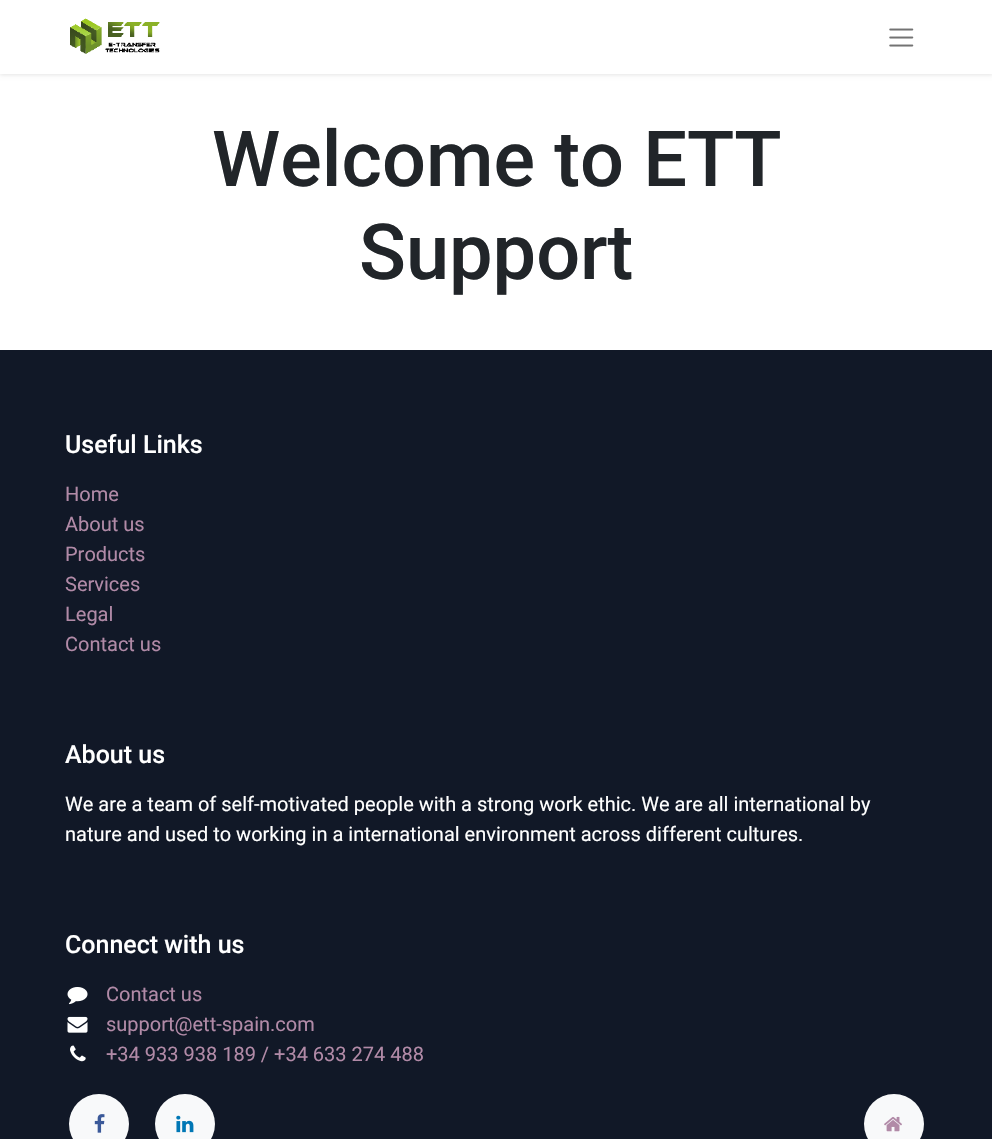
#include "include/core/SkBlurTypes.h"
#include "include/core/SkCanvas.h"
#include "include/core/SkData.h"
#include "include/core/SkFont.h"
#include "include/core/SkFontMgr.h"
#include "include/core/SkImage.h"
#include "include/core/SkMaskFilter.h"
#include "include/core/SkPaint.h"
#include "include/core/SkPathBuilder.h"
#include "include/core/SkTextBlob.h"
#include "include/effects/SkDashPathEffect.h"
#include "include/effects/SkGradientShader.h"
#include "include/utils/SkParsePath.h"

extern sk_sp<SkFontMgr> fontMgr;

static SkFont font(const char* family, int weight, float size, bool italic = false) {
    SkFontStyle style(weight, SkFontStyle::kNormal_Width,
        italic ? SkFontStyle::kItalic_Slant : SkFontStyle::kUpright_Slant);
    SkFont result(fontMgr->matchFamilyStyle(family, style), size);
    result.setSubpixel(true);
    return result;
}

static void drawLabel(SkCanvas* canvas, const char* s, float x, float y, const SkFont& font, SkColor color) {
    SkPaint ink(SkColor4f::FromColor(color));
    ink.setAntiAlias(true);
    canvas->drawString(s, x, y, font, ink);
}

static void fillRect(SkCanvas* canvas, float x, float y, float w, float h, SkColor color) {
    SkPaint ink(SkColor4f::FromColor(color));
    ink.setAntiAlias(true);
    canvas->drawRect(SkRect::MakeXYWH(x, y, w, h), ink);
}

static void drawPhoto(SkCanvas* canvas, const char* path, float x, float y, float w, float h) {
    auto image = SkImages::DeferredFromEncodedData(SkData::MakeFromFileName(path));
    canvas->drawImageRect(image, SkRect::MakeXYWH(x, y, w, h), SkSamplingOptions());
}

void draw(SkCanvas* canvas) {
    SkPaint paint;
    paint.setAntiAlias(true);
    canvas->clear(0xFFFFFFFF);
    paint.setColor(0x1A000000);
    paint.setMaskFilter(SkMaskFilter::MakeBlur(kNormal_SkBlurStyle, 2));
    canvas->drawRect(SkRect::MakeXYWH(0, 1, 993, 74), paint);
    paint.setMaskFilter(nullptr);
    fillRect(canvas, 0, 0, 992, 74, 0xFFFFFFFF);
    drawPhoto(canvas, "assets/img1.png", 70, 18, 90, 36);
    drawPhoto(canvas, "assets/img2.png", 889, 28, 25, 19);
    SkFont font1 = font("Roboto", 500, 77.5f);
    drawLabel(canvas, "Welcome to ETT", 212, 186, font1, 0xFF212529);
    drawLabel(canvas, "Support", 359, 279, font1, 0xFF212529);
    fillRect(canvas, 0, 350, 992, 789, 0xFF111827);
    SkFont font2 = font("Roboto", 500, 25);
    drawLabel(canvas, "Useful Links", 65, 453, font2, 0xFFFFFFFF);
    SkFont font3 = font("Roboto", 400, 20);
    drawLabel(canvas, "Home", 65, 501, font3, 0xFFB18AA7);
    drawLabel(canvas, "About us", 65, 531, font3, 0xFFB18AA7);
    drawLabel(canvas, "Products", 65, 561, font3, 0xFFB18AA7);
    drawLabel(canvas, "Services", 65, 591, font3, 0xFFB18AA7);
    drawLabel(canvas, "Legal", 65, 621, font3, 0xFFB18AA7);
    drawLabel(canvas, "Contact us", 65, 651, font3, 0xFFB18AA7);
    drawLabel(canvas, "About us", 65, 763, font2, 0xFFFFFFFF);
    drawLabel(canvas, "We are a team of self-motivated people with a strong work ethic. We are all international by", 65, 811, font3, 0xFFFFFFFF);
    drawLabel(canvas, "nature and used to working in a international environment across different cultures.", 65, 841, font3, 0xFFFFFFFF);
    drawLabel(canvas, "Connect with us", 65, 953, font2, 0xFFFFFFFF);
    drawPhoto(canvas, "assets/img3.png", 67, 987, 21, 18);
    drawLabel(canvas, "Contact us", 106, 1001, font3, 0xFFB18AA7);
    drawPhoto(canvas, "assets/img4.png", 67, 1016, 21, 17);
    drawLabel(canvas, "support@ett-spain.com", 106, 1031, font3, 0xFFB18AA7);
    drawPhoto(canvas, "assets/img5.png", 70, 1045, 16, 17);
    drawLabel(canvas, "+34 933 938 189 / +34 633 274 488", 106, 1061, font3, 0xFFB18AA7);
    paint.setColor(0xFFF8F9FA);
    canvas->drawCircle(99, 1124, 30, paint);
    drawPhoto(canvas, "assets/img6.png", 94, 1114, 11, 19);
    canvas->drawCircle(185, 1124, 30, paint);
    drawPhoto(canvas, "assets/img7.png", 176, 1115, 18, 18);
    canvas->drawCircle(894, 1124, 30, paint);
    drawPhoto(canvas, "assets/img8.png", 884, 1116, 18, 16);
}
